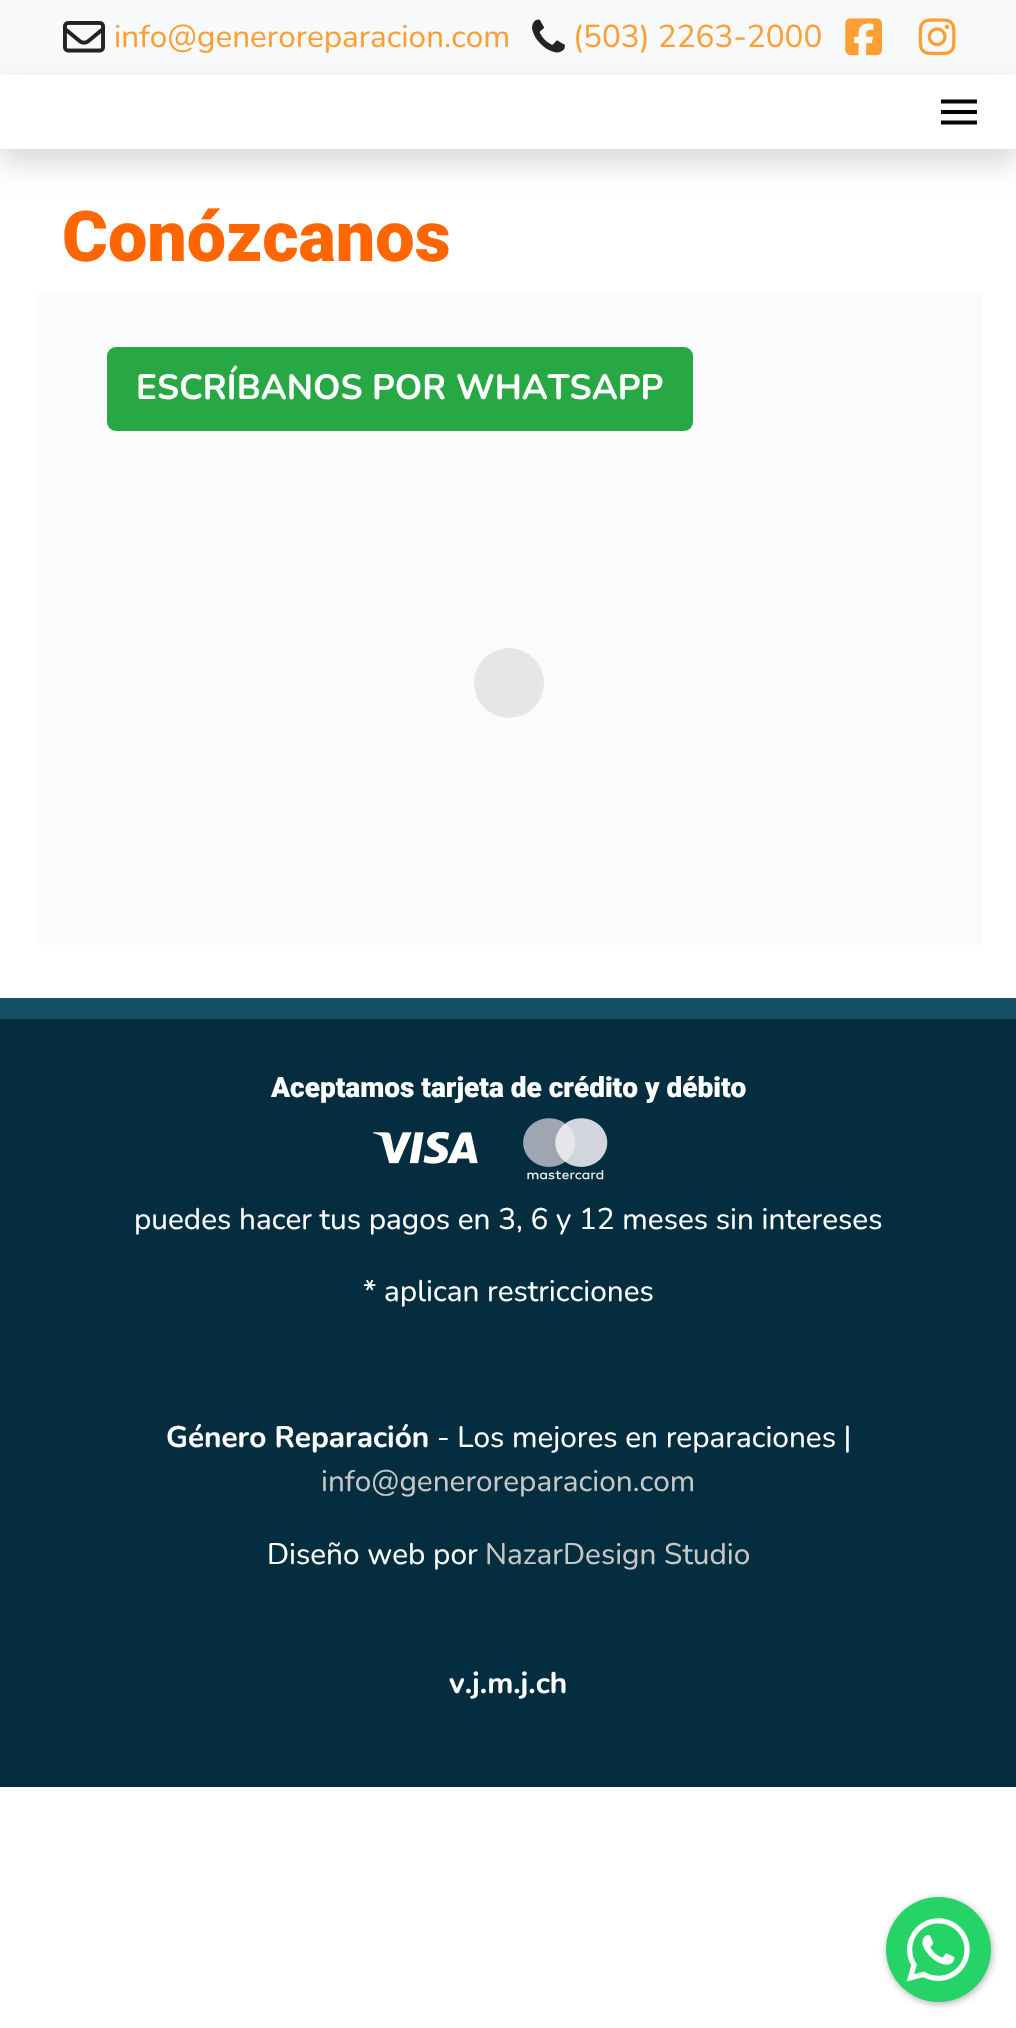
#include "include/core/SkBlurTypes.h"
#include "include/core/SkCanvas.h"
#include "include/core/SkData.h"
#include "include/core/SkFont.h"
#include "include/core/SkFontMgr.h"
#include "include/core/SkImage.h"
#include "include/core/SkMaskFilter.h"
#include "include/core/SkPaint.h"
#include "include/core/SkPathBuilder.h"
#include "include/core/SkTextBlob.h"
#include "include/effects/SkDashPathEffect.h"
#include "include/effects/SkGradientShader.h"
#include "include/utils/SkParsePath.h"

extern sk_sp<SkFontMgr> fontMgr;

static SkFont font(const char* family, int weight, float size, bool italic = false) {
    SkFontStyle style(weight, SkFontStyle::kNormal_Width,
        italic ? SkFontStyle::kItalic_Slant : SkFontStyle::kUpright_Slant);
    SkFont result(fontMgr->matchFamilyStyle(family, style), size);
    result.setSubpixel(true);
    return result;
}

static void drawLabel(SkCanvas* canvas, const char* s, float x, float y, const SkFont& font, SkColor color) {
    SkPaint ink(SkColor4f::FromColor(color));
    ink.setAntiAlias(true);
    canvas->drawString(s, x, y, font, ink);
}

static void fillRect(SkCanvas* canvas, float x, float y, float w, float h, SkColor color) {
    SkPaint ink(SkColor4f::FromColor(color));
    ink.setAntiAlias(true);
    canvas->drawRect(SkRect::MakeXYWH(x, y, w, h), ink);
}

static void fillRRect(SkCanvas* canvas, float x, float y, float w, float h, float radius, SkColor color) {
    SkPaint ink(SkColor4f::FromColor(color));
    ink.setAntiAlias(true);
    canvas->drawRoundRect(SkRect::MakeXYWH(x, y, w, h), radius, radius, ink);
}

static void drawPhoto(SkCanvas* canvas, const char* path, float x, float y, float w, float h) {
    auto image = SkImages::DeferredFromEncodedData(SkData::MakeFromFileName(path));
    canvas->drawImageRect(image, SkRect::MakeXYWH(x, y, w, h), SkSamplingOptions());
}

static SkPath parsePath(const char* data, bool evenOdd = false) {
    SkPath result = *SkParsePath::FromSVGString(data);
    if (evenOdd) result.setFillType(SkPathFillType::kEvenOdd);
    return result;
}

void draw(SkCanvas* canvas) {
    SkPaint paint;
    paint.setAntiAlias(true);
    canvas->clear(0xFFFFFFFF);
    fillRect(canvas, 0, 0, 1016, 75, 0xFFF8F9FA);
    drawPhoto(canvas, "assets/img1.png", 63, 21, 42, 32);
    SkFont font1 = font("Nunito", 400, 31.5f);
    drawLabel(canvas, "info@generoreparacion.com", 114, 47, font1, 0xFFFF9E33);
    drawPhoto(canvas, "assets/img2.png", 532, 19, 33, 34);
    drawLabel(canvas, "(503) 2263-2000", 573, 47, font1, 0xFFFF9E33);
    drawPhoto(canvas, "assets/img3.png", 845, 18, 37, 38);
    drawPhoto(canvas, "assets/img4.png", 918, 18, 38, 38);
    paint.setColor(0x26000000);
    paint.setMaskFilter(SkMaskFilter::MakeBlur(kNormal_SkBlurStyle, 14));
    canvas->drawRect(SkRect::MakeXYWH(0, 89, 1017, 74), paint);
    paint.setMaskFilter(nullptr);
    fillRect(canvas, 0, 75, 1016, 74, 0xFFFFFFFF);
    paint.setStroke(true);
    paint.setStrokeWidth(3.9f);
    paint.setStrokeCap(SkPaint::kSquare_Cap);
    paint.setColor(0xFF000000);
    canvas->drawPath(parsePath("M943 101.5H975M943 112H975M943 122.5H975"), paint);
    SkFont font2 = font("Roboto", 900, 70);
    drawLabel(canvas, "Conózcanos", 62, 261, font2, 0xFFFF6600);
    fillRect(canvas, 37, 294, 945, 651, 0xFFFBFBFB);
    fillRRect(canvas, 107, 347, 586, 84, 9, 0xFF28A745);
    SkFont font3 = font("Nunito", 700, 35);
    drawLabel(canvas, "ESCRÍBANOS POR WHATSAPP", 136, 399, font3, 0xFFFFFFFF);
    paint.setStroke(false);
    paint.setColor(0xFFE6E6E6);
    canvas->drawCircle(509, 683, 35, paint);
    fillRect(canvas, 0, 1019, 1016, 768, 0xFF042E3F);
    fillRect(canvas, 0, 998, 1016, 21, 0xFF165067);
    SkFont font4 = font("Roboto", 900, 28);
    drawLabel(canvas, "Aceptamos tarjeta de crédito y débito", 271, 1097, font4, 0xFFFFFFFF);
    drawPhoto(canvas, "assets/img5.png", 373, 1132, 105, 32);
    drawPhoto(canvas, "assets/img6.png", 523, 1118, 85, 62);
    SkFont font5 = font("Nunito", 400, 29.75f);
    drawLabel(canvas, "puedes hacer tus pagos en 3, 6 y 12 meses sin intereses", 134, 1229, font5, 0xFFFFFFFF);
    drawLabel(canvas, "* aplican restricciones", 363, 1301, font5, 0xFFFFFFFF);
    SkFont font6 = font("Nunito", 700, 29.75f);
    drawLabel(canvas, "Género Reparación", 166, 1447, font6, 0xFFFFFFFF);
    drawLabel(canvas, "- Los mejores en reparaciones |", 437, 1447, font5, 0xFFFFFFFF);
    drawLabel(canvas, "info@generoreparacion.com", 321, 1491, font5, 0xFFC7C7C7);
    drawLabel(canvas, "Diseño web por", 267, 1564, font5, 0xFFFFFFFF);
    drawLabel(canvas, "NazarDesign Studio", 485, 1564, font5, 0xFFC7C7C7);
    drawLabel(canvas, "v.j.m.j.ch", 449, 1693, font6, 0xFFFFFFFF);
    paint.setColor(0x4D000000);
    paint.setMaskFilter(SkMaskFilter::MakeBlur(kNormal_SkBlurStyle, 3.5f));
    canvas->drawRoundRect(SkRect::MakeXYWH(887, 1899, 105, 105), 52.5f, 52.5f, paint);
    paint.setMaskFilter(nullptr);
    paint.setColor(0xFF25D366);
    canvas->drawCircle(938.5f, 1949.5f, 52.5f, paint);
    drawPhoto(canvas, "assets/img7.png", 906, 1918, 64, 64);
}
